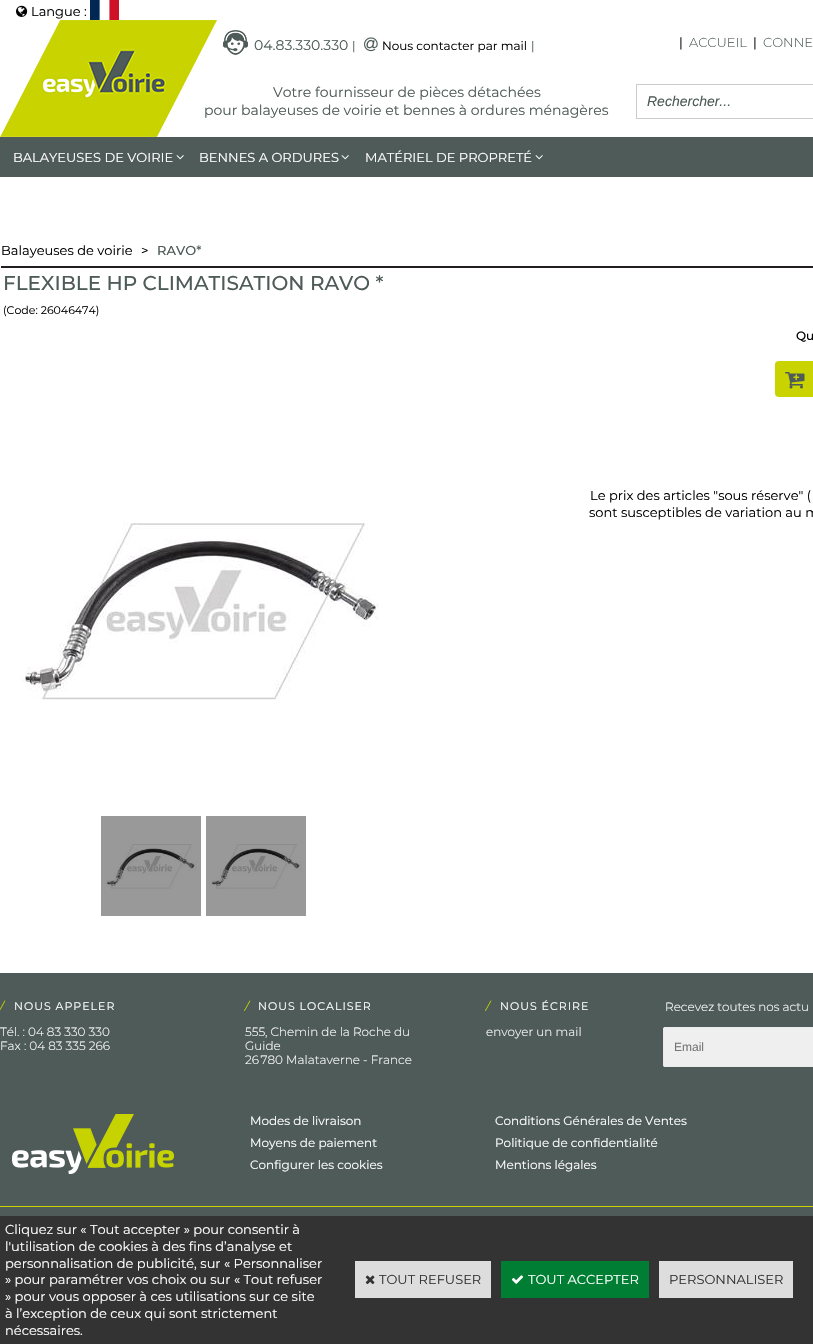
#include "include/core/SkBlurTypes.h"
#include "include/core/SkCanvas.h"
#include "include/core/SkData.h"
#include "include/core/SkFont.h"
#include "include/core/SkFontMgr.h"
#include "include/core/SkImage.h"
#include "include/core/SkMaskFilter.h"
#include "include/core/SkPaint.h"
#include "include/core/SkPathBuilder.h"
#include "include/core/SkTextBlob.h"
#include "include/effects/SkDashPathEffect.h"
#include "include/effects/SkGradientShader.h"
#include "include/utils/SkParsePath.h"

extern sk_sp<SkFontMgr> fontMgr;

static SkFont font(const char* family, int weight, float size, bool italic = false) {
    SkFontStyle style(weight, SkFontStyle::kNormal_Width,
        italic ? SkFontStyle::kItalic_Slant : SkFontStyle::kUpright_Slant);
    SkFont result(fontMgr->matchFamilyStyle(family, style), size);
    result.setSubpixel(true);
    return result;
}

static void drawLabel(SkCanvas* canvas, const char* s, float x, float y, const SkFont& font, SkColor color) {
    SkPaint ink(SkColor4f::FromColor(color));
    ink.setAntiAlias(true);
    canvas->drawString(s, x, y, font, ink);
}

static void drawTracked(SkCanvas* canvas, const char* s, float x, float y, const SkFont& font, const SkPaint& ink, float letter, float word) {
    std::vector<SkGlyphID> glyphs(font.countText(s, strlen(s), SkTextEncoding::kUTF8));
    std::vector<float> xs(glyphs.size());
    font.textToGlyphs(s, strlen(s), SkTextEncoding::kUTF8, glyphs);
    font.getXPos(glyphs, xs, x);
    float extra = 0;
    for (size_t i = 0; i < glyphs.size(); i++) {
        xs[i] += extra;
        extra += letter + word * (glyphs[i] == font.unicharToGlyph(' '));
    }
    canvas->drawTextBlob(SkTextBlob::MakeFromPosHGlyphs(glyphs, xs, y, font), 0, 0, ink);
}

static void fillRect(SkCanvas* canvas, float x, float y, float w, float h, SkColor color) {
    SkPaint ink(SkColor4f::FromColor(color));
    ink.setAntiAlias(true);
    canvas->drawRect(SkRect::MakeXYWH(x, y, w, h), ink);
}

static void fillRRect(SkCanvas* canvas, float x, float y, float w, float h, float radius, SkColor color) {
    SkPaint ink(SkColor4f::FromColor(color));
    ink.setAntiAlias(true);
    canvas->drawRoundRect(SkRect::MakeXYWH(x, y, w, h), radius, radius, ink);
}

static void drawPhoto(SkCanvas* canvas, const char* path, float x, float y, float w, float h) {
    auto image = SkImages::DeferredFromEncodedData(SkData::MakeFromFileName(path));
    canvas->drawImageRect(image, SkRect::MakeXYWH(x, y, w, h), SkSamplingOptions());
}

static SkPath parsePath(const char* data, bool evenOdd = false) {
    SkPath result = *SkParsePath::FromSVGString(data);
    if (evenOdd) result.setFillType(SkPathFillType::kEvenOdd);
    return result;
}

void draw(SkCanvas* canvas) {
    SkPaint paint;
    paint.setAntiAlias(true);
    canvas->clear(0xFFFFFFFF);
    drawPhoto(canvas, "assets/img1.png", 16, 5, 12, 12);
    SkFont font1 = font("Montserrat", 400, 13);
    drawLabel(canvas, "Langue :", 31, 16, font1, 0xFF000000);
    drawPhoto(canvas, "assets/img2.png", 90, 0, 29, 20);
    drawPhoto(canvas, "assets/img3.png", 0, 20, 217, 117);
    drawPhoto(canvas, "assets/img4.png", 223, 30, 25, 25);
    SkFont font2 = font("Montserrat", 400, 14);
    drawLabel(canvas, "04.83.330.330", 254, 50, font2, 0xFF4E5B58);
    SkFont font3 = font("Montserrat", 400, 12);
    drawLabel(canvas, "|", 352, 50, font3, 0xFF4E5B58);
    drawPhoto(canvas, "assets/img5.png", 364, 37, 14, 15);
    drawLabel(canvas, "Nous contacter par mail", 382, 50, font3, 0xFF000000);
    drawLabel(canvas, "|", 531, 50, font3, 0xFF4E5B58);
    drawLabel(canvas, "|", 679, 47, font1, 0xFF000000);
    SkFont font4 = font("Montserrat", 300, 13);
    drawLabel(canvas, "ACCUEIL", 689, 47, font4, 0xFF4E5B58);
    drawLabel(canvas, "|", 753, 47, font1, 0xFF000000);
    drawLabel(canvas, "CONNE", 763, 47, font4, 0xFF4E5B58);
    drawLabel(canvas, "Votre fournisseur de pièces détachées", 273, 97, font2, 0xFF4E5B58);
    drawLabel(canvas, "pour balayeuses de voirie et bennes à ordures ménagères", 204, 115, font2, 0xFF4E5B58);
    paint.setStroke(true);
    paint.setStrokeWidth(1);
    paint.setColor(0xFFCCCCCC);
    canvas->drawRect(SkRect::MakeXYWH(636.5f, 84.5f, 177, 34), paint);
    SkFont font5 = font("Liberation Sans", 400, 14, true);
    drawLabel(canvas, "Rechercher...", 647, 106, font5, 0xFF4E5B58);
    fillRect(canvas, 0, 137, 813, 40, 0xFF4E5B58);
    drawLabel(canvas, "BALAYEUSES DE VOIRIE", 13, 162, font1, 0xFFFFFFFF);
    drawPhoto(canvas, "assets/img6.png", 176, 155, 8, 5);
    drawLabel(canvas, "BENNES A ORDURES", 199, 162, font1, 0xFFFFFFFF);
    drawPhoto(canvas, "assets/img6.png", 341, 155, 8, 5);
    drawLabel(canvas, "MATÉRIEL DE PROPRETÉ", 365, 162, font1, 0xFFFFFFFF);
    drawPhoto(canvas, "assets/img6.png", 535, 155, 8, 5);
    drawLabel(canvas, "Balayeuses de voirie", 1, 255, font1, 0xFF000000);
    drawLabel(canvas, ">", 141, 255, font1, 0xFF000000);
    SkFont font6 = font("Montserrat", 500, 13);
    drawLabel(canvas, "RAVO*", 157, 255, font6, 0xFF4E5B58);
    fillRect(canvas, 1, 266, 812, 2, 0xFF221E1F);
    SkFont font7 = font("Montserrat", 500, 20);
    drawLabel(canvas, "FLEXIBLE HP CLIMATISATION RAVO *", 3, 290, font7, 0xFF4E5B58);
    SkFont font8 = font("Montserrat", 400, 11);
    drawLabel(canvas, "(Code: 26046474)", 3, 314, font8, 0xFF000000);
    SkFont font9 = font("Montserrat", 500, 12);
    drawLabel(canvas, "Qu", 796, 340, font9, 0xFF000000);
    fillRRect(canvas, 775, 361, 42, 36, 4, 0xFFC8D300);
    drawPhoto(canvas, "assets/img7.png", 785, 372, 20, 17);
    drawLabel(canvas, "Le prix des articles \"sous réserve\" (", 590, 500, font1, 0xFF000000);
    drawLabel(canvas, "sont susceptibles de variation au m", 589, 517, font1, 0xFF000000);
    drawPhoto(canvas, "assets/img8.png", 20, 523, 359, 177);
    drawPhoto(canvas, "assets/img9.png", 101, 816, 100, 100);
    drawPhoto(canvas, "assets/img9.png", 206, 816, 100, 100);
    fillRect(canvas, 0, 973, 813, 243, 0xFF4E5B58);
    SkFont font10 = font("Montserrat", 400, 11, true);
    paint.setStroke(false);
    paint.setColor(0xFFC8D300);
    drawTracked(canvas, "/", 0, 1010, font10, paint, 1, 0);
    paint.setColor(0xFFFFFFFF);
    drawTracked(canvas, "NOUS APPELER", 14, 1010, font8, paint, 1, 0);
    SkFont font11 = font("Montserrat", 300, 12);
    drawLabel(canvas, "Tél. : 04 83 330 330", 0, 1036, font11, 0xFFFFFFFF);
    drawLabel(canvas, "Fax : 04 83 335 266", 0, 1050, font11, 0xFFFFFFFF);
    paint.setColor(0xFFC8D300);
    drawTracked(canvas, "/", 245, 1010, font10, paint, 1, 0);
    paint.setColor(0xFFFFFFFF);
    drawTracked(canvas, "NOUS LOCALISER", 258, 1010, font8, paint, 1, 0);
    drawLabel(canvas, "555, Chemin de la Roche du", 245, 1036, font11, 0xFFFFFFFF);
    drawLabel(canvas, "Guide", 245, 1050, font11, 0xFFFFFFFF);
    drawLabel(canvas, "26 780 Malataverne - France", 245, 1064, font11, 0xFFFFFFFF);
    paint.setColor(0xFFC8D300);
    drawTracked(canvas, "/", 486, 1010, font10, paint, 1, 0);
    paint.setColor(0xFFFFFFFF);
    drawTracked(canvas, "NOUS ÉCRIRE", 500, 1010, font8, paint, 1, 0);
    drawLabel(canvas, "envoyer un mail", 486, 1036, font11, 0xFFFFFFFF);
    drawLabel(canvas, "Recevez toutes nos actu", 665, 1011, font11, 0xFFFFFFFF);
    paint.setColor(0xFFEFEFEF);
    canvas->drawPath(parsePath("M665 1027H813V1067H665C664 1067 663 1066 663 1065V1029C663 1028 664 1027 665 1027Z"), paint);
    paint.setStroke(true);
    paint.setColor(0xFFEBEBEB);
    canvas->drawRoundRect(SkRect::MakeXYWH(663.5f, 1027.5f, 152, 39), 1.5f, 1.5f, paint);
    SkFont font12 = font("Liberation Sans", 400, 12);
    drawLabel(canvas, "Email", 674, 1051, font12, 0xFF757575);
    drawPhoto(canvas, "assets/img10.png", 5, 1114, 169, 60);
    drawLabel(canvas, "Modes de livraison", 250, 1125, font3, 0xFFFFFFFF);
    drawLabel(canvas, "Moyens de paiement", 250, 1147, font3, 0xFFFFFFFF);
    drawLabel(canvas, "Configurer les cookies", 250, 1169, font3, 0xFFFFFFFF);
    drawLabel(canvas, "Conditions Générales de Ventes", 495, 1125, font3, 0xFFFFFFFF);
    drawLabel(canvas, "Politique de confidentialité", 495, 1147, font3, 0xFFFFFFFF);
    drawLabel(canvas, "Mentions légales", 495, 1169, font3, 0xFFFFFFFF);
    fillRect(canvas, 0, 1206, 813, 1, 0xFFC8D300);
    fillRect(canvas, 0, 1216, 813, 128, 0xFF333333);
    drawLabel(canvas, "Cliquez sur « Tout accepter » pour consentir à", 5, 1234, font1, 0xFFFFFFFF);
    drawLabel(canvas, "l'utilisation de cookies à des fins d’analyse et", 5, 1251, font1, 0xFFFFFFFF);
    drawLabel(canvas, "personnalisation de publicité, sur « Personnaliser", 5, 1268, font1, 0xFFFFFFFF);
    drawLabel(canvas, "» pour paramétrer vos choix ou sur « Tout refuser", 5, 1284, font1, 0xFFFFFFFF);
    drawLabel(canvas, "» pour vous opposer à ces utilisations sur ce site", 5, 1301, font1, 0xFFFFFFFF);
    drawLabel(canvas, "à l’exception de ceux qui sont strictement", 5, 1318, font1, 0xFFFFFFFF);
    drawLabel(canvas, "nécessaires.", 5, 1335, font1, 0xFFFFFFFF);
    fillRect(canvas, 355, 1261, 136, 37, 0xFFDDDDDD);
    drawPhoto(canvas, "assets/img11.png", 365, 1275, 10, 10);
    drawLabel(canvas, "TOUT REFUSER", 379, 1284, font1, 0xFF333333);
    fillRect(canvas, 501, 1261, 148, 37, 0xFF007E33);
    drawPhoto(canvas, "assets/img12.png", 511, 1275, 13, 9);
    drawLabel(canvas, "TOUT ACCEPTER", 528, 1284, font1, 0xFFFFFFFF);
    fillRect(canvas, 659, 1261, 134, 37, 0xFFDDDDDD);
    drawLabel(canvas, "PERSONNALISER", 669, 1284, font1, 0xFF333333);
}
